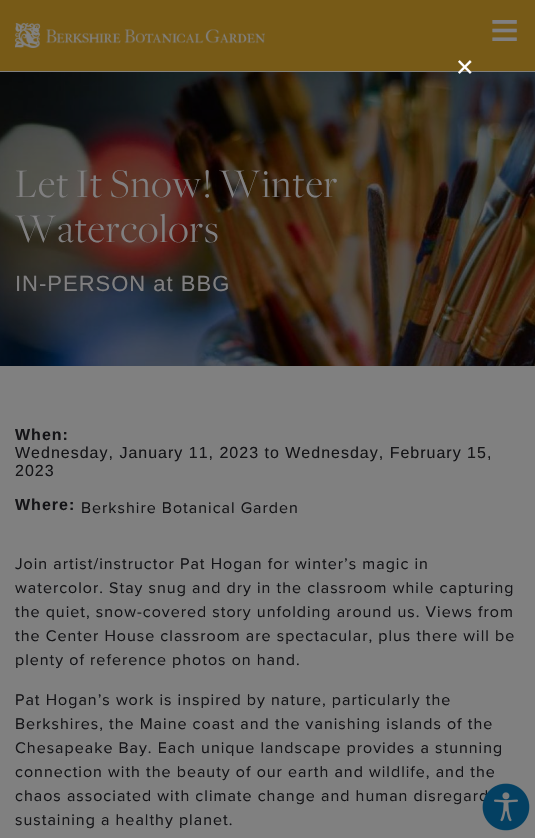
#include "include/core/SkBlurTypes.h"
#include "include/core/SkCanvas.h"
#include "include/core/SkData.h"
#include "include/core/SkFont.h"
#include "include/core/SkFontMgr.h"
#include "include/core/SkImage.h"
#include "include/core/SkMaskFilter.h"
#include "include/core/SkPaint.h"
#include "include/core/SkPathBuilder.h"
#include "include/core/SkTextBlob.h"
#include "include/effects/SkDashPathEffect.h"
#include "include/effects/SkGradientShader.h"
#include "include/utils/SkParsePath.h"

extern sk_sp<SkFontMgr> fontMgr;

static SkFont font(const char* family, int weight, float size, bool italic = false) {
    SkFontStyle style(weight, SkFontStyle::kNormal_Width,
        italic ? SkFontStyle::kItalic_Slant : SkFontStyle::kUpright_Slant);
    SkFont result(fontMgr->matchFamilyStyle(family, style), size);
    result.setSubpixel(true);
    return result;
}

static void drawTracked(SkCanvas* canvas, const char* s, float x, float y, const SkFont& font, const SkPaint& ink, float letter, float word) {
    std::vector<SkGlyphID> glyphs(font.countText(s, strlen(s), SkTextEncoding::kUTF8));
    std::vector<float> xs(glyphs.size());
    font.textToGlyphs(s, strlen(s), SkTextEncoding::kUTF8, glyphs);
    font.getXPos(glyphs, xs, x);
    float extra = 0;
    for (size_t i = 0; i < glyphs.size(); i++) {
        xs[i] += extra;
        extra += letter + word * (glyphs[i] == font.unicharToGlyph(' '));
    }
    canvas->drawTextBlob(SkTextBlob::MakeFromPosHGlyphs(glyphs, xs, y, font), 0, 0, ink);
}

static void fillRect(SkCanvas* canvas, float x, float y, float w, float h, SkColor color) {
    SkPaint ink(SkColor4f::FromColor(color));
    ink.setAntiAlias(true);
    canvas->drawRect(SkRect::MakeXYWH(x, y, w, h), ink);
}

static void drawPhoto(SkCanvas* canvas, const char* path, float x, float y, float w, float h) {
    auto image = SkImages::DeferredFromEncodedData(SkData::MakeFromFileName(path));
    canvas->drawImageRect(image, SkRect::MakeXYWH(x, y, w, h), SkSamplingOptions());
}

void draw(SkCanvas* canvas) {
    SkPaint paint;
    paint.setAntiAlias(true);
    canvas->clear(0xFF808080);
    fillRect(canvas, 0, 0, 535, 71, 0xFF775A17);
    drawPhoto(canvas, "assets/img1.png", 15, 23, 250, 25);
    SkFont font1 = font("Liberation Sans", 400, 50);
    paint.setColor(0xFF807F80);
    drawTracked(canvas, "≡", 490, 47, font1, paint, 1, 0);
    drawPhoto(canvas, "assets/img2.png", 0, 72, 535, 294);
    SkFont font2 = font("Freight", 300, 42);
    drawTracked(canvas, "Let It Snow! Winter", 15, 197, font2, paint, 1, 0);
    drawTracked(canvas, "Watercolors", 15, 242, font2, paint, 1, 0);
    SkFont font3 = font("Liberation Sans", 400, 22);
    drawTracked(canvas, "IN-PERSON at BBG", 15, 291, font3, paint, 1, 0);
    SkFont font4 = font("Liberation Sans", 700, 16);
    paint.setColor(0xFF141417);
    drawTracked(canvas, "When:", 15, 440, font4, paint, 1, 0);
    SkFont font5 = font("Liberation Sans", 400, 16);
    drawTracked(canvas, "Wednesday, January 11, 2023 to Wednesday, February 15,", 15, 458, font5, paint, 1, 0);
    drawTracked(canvas, "2023", 15, 476, font5, paint, 1, 0);
    drawTracked(canvas, "Where:", 15, 510, font4, paint, 1, 0);
    SkFont font6 = font("Proxima Nova", 400, 16);
    drawTracked(canvas, "Berkshire Botanical Garden", 81, 513, font6, paint, 1, 0);
    drawTracked(canvas, "Join artist/instructor Pat Hogan for winter’s magic in", 15, 569, font6, paint, 1, 0);
    drawTracked(canvas, "watercolor. Stay snug and dry in the classroom while capturing", 15, 593, font6, paint, 1, 0);
    drawTracked(canvas, "the quiet, snow-covered story unfolding around us. Views from", 15, 617, font6, paint, 1, 0);
    drawTracked(canvas, "the Center House classroom are spectacular, plus there will be", 15, 641, font6, paint, 1, 0);
    drawTracked(canvas, "plenty of reference photos on hand.", 15, 665, font6, paint, 1, 0);
    drawTracked(canvas, "Pat Hogan’s work is inspired by nature, particularly the", 15, 705, font6, paint, 1, 0);
    drawTracked(canvas, "Berkshires, the Maine coast and the vanishing islands of the", 15, 729, font6, paint, 1, 0);
    drawTracked(canvas, "Chesapeake Bay. Each unique landscape provides a stunning", 15, 753, font6, paint, 1, 0);
    drawTracked(canvas, "connection with the beauty of our earth and wildlife, and the", 15, 777, font6, paint, 1, 0);
    drawTracked(canvas, "chaos associated with climate change and human disregard", 15, 801, font6, paint, 1, 0);
    drawTracked(canvas, "sustaining a healthy planet.", 15, 825, font6, paint, 1, 0);
    SkFont font7 = font("Liberation Sans", 400, 30);
    paint.setColor(0xFFFFFFFF);
    drawTracked(canvas, "×", 456, 77, font7, paint, 1, 0);
    drawPhoto(canvas, "assets/img3.png", 482, 783, 48, 48);
}
